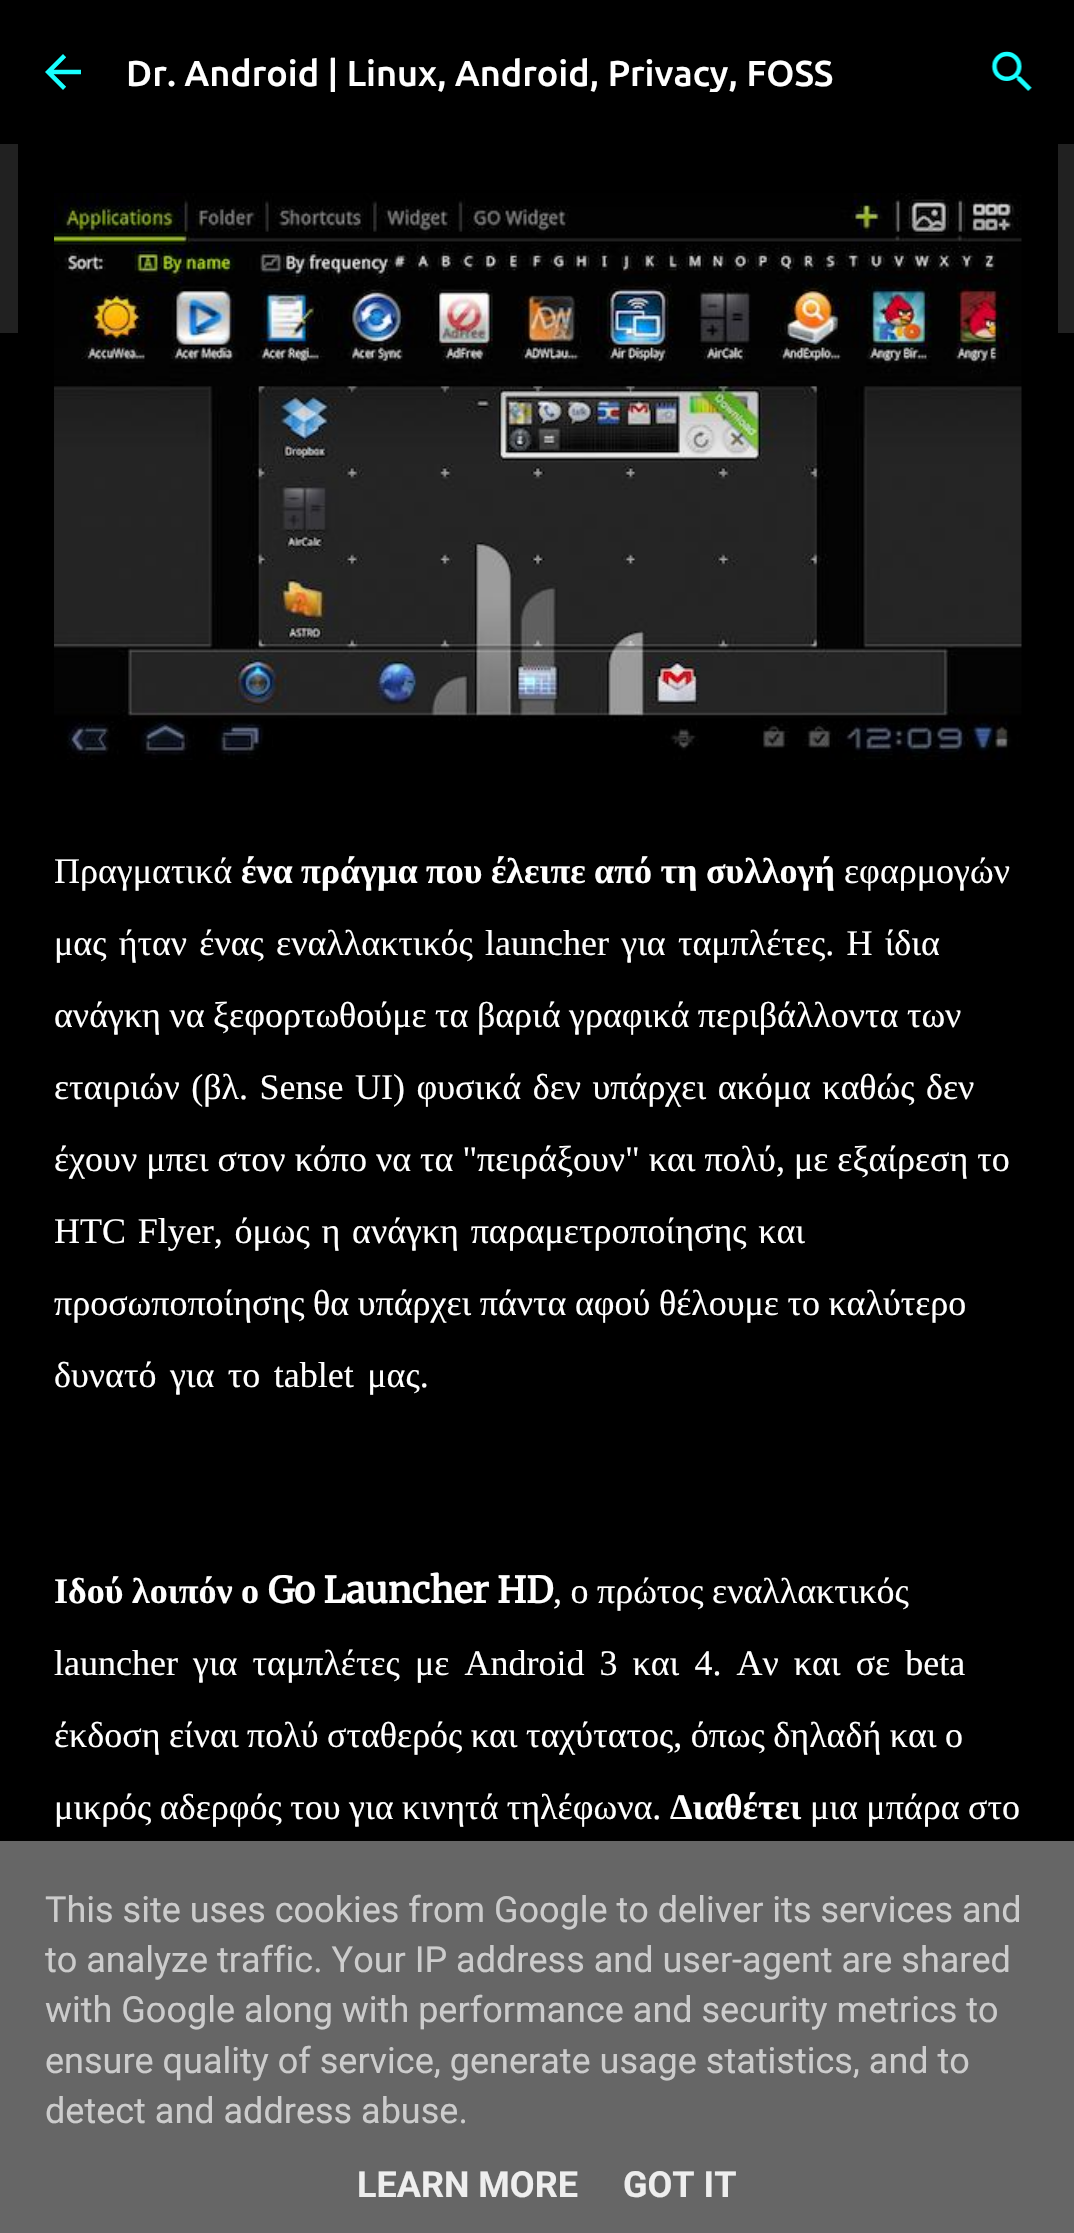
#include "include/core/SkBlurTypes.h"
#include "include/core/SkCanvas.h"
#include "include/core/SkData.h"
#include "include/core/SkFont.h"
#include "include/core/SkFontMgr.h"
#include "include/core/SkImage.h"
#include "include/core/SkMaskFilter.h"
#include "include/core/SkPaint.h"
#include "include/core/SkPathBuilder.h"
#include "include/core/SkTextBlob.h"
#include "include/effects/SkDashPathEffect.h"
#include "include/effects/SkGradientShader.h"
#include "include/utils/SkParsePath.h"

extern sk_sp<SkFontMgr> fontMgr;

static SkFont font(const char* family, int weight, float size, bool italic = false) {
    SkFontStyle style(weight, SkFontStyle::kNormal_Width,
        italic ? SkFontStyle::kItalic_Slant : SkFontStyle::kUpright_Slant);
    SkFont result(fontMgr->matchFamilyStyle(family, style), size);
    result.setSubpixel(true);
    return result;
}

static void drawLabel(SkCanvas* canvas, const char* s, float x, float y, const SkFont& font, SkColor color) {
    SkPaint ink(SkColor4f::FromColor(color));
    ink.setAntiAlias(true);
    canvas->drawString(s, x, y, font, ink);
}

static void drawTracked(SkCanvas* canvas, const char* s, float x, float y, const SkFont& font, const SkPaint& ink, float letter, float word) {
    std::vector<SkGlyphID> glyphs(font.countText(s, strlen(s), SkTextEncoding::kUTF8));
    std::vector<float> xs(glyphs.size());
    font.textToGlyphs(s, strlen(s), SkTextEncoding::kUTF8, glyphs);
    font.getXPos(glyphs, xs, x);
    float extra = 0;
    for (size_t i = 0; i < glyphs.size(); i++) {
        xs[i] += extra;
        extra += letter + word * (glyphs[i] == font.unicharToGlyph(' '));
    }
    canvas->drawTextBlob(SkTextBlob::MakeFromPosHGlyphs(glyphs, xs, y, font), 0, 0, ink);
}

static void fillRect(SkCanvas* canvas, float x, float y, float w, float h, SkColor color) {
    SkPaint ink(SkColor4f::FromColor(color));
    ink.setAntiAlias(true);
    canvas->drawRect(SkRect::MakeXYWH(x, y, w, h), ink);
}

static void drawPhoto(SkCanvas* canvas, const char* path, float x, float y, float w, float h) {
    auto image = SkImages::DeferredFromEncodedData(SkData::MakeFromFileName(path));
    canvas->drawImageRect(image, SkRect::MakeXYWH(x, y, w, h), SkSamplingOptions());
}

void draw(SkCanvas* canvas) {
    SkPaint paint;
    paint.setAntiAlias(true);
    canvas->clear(0xFF212121);
    fillRect(canvas, 0, 0, 1074, 144, 0xFF000000);
    drawPhoto(canvas, "assets/img1.png", 45, 54, 36, 36);
    canvas->save();
    canvas->clipRect(SkRect::MakeXYWH(126, 52, 824, 40));
    SkFont font1 = font("Ubuntu", 500, 36);
    drawLabel(canvas, "Dr. Android | Linux, Android, Privacy, FOSS", 126, 86, font1, 0xFFFFFFFF);
    canvas->restore();
    drawPhoto(canvas, "assets/img2.png", 991, 51, 41, 40);
    fillRect(canvas, 0, 333, 1074, 1508, 0xFF000000);
    fillRect(canvas, 18, 144, 1040, 189, 0xFF000000);
    drawPhoto(canvas, "assets/img3.png", 54, 193, 968, 567);
    SkFont font2 = font("Liberation Serif", 400, 36);
    drawLabel(canvas, "Πραγματικά", 54, 883, font2, 0xFFFFFFFF);
    SkFont font3 = font("Liberation Serif", 700, 36);
    paint.setColor(0xFFFFFFFF);
    drawTracked(canvas, "ένα πράγμα που έλειπε από τη συλλογή", 241, 883, font3, paint, 0, -0.5f);
    drawLabel(canvas, "εφαρμογών", 844, 883, font2, 0xFFFFFFFF);
    drawTracked(canvas, "μας ήταν ένας εναλλακτικός launcher για ταμπλέτες. Η ίδια", 54, 955, font2, paint, 0, 3.25f);
    drawTracked(canvas, "ανάγκη να ξεφορτωθούμε τα βαριά γραφικά περιβάλλοντα των", 54, 1027, font2, paint, 0, -0.5f);
    drawTracked(canvas, "εταιριών (βλ. Sense UI) φυσικά δεν υπάρχει ακόμα καθώς δεν", 54, 1099, font2, paint, 0, 2.5f);
    drawLabel(canvas, "έχουν μπει στον κόπο να τα \"πειράξουν\" και πολύ, με εξαίρεση το", 54, 1171, font2, 0xFFFFFFFF);
    drawTracked(canvas, "HTC Flyer, όμως η ανάγκη παραμετροποίησης και", 54, 1243, font2, paint, 0, 2.75f);
    drawTracked(canvas, "προσωποποίησης θα υπάρχει πάντα αφού θέλουμε το καλύτερο", 54, 1315, font2, paint, 0, -0.5f);
    drawTracked(canvas, "δυνατό για το tablet μας.", 54, 1387, font2, paint, 0, 4.5f);
    drawLabel(canvas, "Ιδού", 54, 1603, font3, 0xFFFFFFFF);
    drawLabel(canvas, "λοιπόν", 132, 1603, font3, 0xFFFFFFFF);
    drawLabel(canvas, "ο", 241, 1603, font3, 0xFFFFFFFF);
    SkFont font4 = font("Merriweather", 700, 36);
    drawLabel(canvas, "Go Launcher HD", 268, 1603, font4, 0xFFFFFFFF);
    drawTracked(canvas, ", ο πρώτος εναλλακτικός", 553, 1603, font2, paint, 0, -0.5f);
    drawTracked(canvas, "launcher για ταμπλέτες με Android 3 και 4. Αν και σε beta", 54, 1675, font2, paint, 0, 6.1f);
    drawTracked(canvas, "έκδοση είναι πολύ σταθερός και ταχύτατος, όπως δηλαδή και ο", 54, 1747, font2, paint, 0, -0.5f);
    drawTracked(canvas, "μικρός αδερφός του για κινητά τηλέφωνα.", 54, 1819, font2, paint, 0, -0.5f);
    drawLabel(canvas, "Διαθέτει", 670, 1819, font3, 0xFFFFFFFF);
    drawTracked(canvas, "μια μπάρα στο", 810, 1819, font2, paint, 0, -0.5f);
    fillRect(canvas, 0, 1841, 1074, 392, 0xFF666666);
    SkFont font5 = font("Roboto", 400, 36);
    drawLabel(canvas, "This site uses cookies from Google to deliver its services and", 45, 1922, font5, 0xFFCCCCCC);
    drawLabel(canvas, "to analyze traffic. Your IP address and user-agent are shared", 45, 1972, font5, 0xFFCCCCCC);
    drawLabel(canvas, "with Google along with performance and security metrics to", 45, 2022, font5, 0xFFCCCCCC);
    drawLabel(canvas, "ensure quality of service, generate usage statistics, and to", 45, 2073, font5, 0xFFCCCCCC);
    drawLabel(canvas, "detect and address abuse.", 45, 2123, font5, 0xFFCCCCCC);
    SkFont font6 = font("Roboto", 700, 36);
    drawLabel(canvas, "LEARN MORE", 357, 2197, font6, 0xFFEEEEEE);
    drawLabel(canvas, "GOT IT", 623, 2197, font6, 0xFFEEEEEE);
}
